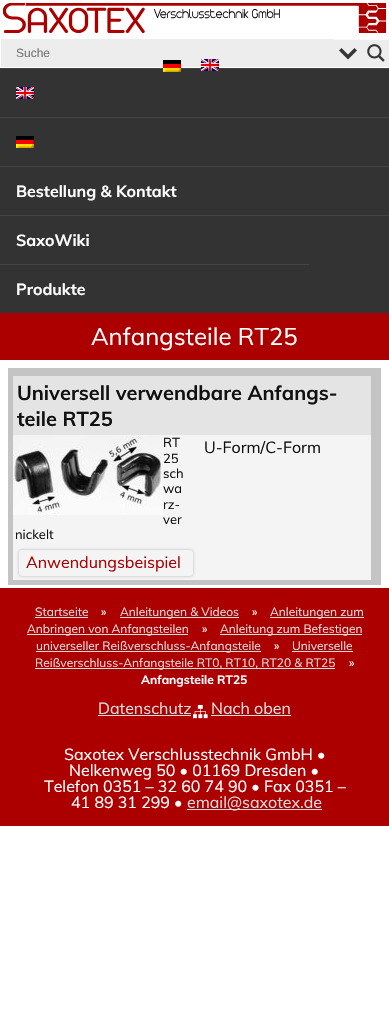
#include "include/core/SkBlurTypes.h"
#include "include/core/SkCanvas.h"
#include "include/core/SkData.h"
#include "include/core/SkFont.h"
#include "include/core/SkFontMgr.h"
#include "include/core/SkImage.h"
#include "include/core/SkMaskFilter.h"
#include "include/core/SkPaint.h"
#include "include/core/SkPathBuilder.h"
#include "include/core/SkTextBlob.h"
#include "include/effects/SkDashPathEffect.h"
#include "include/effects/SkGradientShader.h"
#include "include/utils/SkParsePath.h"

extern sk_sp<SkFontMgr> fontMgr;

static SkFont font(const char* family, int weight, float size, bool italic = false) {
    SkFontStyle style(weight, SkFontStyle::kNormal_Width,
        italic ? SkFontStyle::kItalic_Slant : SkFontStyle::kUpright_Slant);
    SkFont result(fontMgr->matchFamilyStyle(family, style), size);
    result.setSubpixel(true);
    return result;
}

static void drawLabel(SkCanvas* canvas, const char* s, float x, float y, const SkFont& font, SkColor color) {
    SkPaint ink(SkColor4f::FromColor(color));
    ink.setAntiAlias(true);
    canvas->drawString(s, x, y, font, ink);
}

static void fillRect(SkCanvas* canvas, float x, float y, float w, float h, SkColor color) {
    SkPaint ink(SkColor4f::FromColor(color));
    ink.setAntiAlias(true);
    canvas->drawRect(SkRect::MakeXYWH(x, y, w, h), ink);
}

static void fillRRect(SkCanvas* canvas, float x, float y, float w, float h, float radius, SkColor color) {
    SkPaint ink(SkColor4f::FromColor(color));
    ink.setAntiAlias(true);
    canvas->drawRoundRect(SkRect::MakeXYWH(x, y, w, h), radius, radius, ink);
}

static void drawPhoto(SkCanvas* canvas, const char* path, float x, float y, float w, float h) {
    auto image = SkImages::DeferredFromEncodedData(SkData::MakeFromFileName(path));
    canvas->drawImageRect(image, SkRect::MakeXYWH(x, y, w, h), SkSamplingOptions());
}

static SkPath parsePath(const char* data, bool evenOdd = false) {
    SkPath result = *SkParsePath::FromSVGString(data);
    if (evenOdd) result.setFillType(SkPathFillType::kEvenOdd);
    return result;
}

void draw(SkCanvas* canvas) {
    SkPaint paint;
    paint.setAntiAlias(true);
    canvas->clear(0xFFFFFFFF);
    drawPhoto(canvas, "assets/img1.png", 3, 3, 383, 30);
    fillRect(canvas, 1, 39, 388, 28, 0xFFEDEDED);
    fillRect(canvas, 0, 69, 389, 244, 0xFF333333);
    fillRect(canvas, 0, 68, 389, 1, 0xFF444444);
    drawPhoto(canvas, "assets/img2.png", 163, 60, 18, 12);
    drawPhoto(canvas, "assets/img3.png", 201, 59, 18, 12);
    SkFont font1 = font("Liberation Sans", 400, 12);
    drawLabel(canvas, "Suche", 16, 57, font1, 0xFF747474);
    fillRect(canvas, 334, 39, 28, 1, 0xFFF9F9F9);
    paint.setColor(0xFF363636);
    canvas->drawPath(parsePath("M354.5 48L357 50.5L348 59.5L339 50.5L341.5 48L348 54.5Z"), paint);
    canvas->save();
    canvas->clipRect(SkRect::MakeXYWH(362, 39, 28, 28));
    paint.setColor(0xFFF9F9F9);
    canvas->drawPath(parsePath("M263-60H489V166H263ZM361 40H389V68H361Z", true), paint);
    canvas->restore();
    drawPhoto(canvas, "assets/img4.png", 367, 44, 18, 18);
    drawPhoto(canvas, "assets/img3.png", 16, 87, 18, 12);
    fillRect(canvas, 0, 117, 389, 1, 0xFF444444);
    drawPhoto(canvas, "assets/img2.png", 16, 136, 18, 12);
    fillRect(canvas, 0, 166, 389, 1, 0xFF444444);
    SkFont font2 = font("Muli", 700, 16);
    drawLabel(canvas, "Bestellung & Kontakt", 16, 197, font2, 0xFFFFFFFF);
    fillRect(canvas, 0, 215, 389, 1, 0xFF444444);
    drawLabel(canvas, "SaxoWiki", 16, 246, font2, 0xFFFFFFFF);
    fillRect(canvas, 0, 264, 309, 1, 0xFF444444);
    drawLabel(canvas, "Produkte", 16, 295, font2, 0xFFFFFFFF);
    fillRect(canvas, 0, 313, 389, 47, 0xFFAC0000);
    SkFont font3 = font("Muli", 400, 24);
    drawLabel(canvas, "Anfangsteile RT25", 91, 345, font3, 0xFFFFFFFF);
    fillRect(canvas, 8, 368, 373, 217, 0xFFC4C4C4);
    fillRect(canvas, 13, 435, 358, 145, 0xFFF4F4F4);
    fillRect(canvas, 13, 376, 358, 59, 0xFFE4E4E4);
    SkFont font4 = font("Muli", 700, 20);
    drawLabel(canvas, "Universell verwendbare Anfangs-", 17, 400, font4, 0xFF111111);
    drawLabel(canvas, "teile RT25", 17, 426, font4, 0xFF111111);
    drawPhoto(canvas, "assets/img5.png", 13, 435, 150, 80);
    SkFont font5 = font("Muli", 400, 13);
    drawLabel(canvas, "RT", 163, 447, font5, 0xFF111111);
    drawLabel(canvas, "25", 163, 463, font5, 0xFF111111);
    drawLabel(canvas, "sch", 163, 478, font5, 0xFF111111);
    drawLabel(canvas, "wa", 163, 493, font5, 0xFF111111);
    drawLabel(canvas, "rz-", 163, 509, font5, 0xFF111111);
    drawLabel(canvas, "ver", 163, 524, font5, 0xFF111111);
    drawLabel(canvas, "nickelt", 15, 539, font5, 0xFF111111);
    SkFont font6 = font("Muli", 400, 16);
    drawLabel(canvas, "U-Form/C-Form", 204, 453, font6, 0xFF111111);
    paint.setColor(0xFFB4B4B4);
    paint.setMaskFilter(SkMaskFilter::MakeBlur(kNormal_SkBlurStyle, 1.5f));
    canvas->drawRoundRect(SkRect::MakeXYWH(19, 550, 174, 26), 3, 3, paint);
    paint.setMaskFilter(nullptr);
    fillRRect(canvas, 19, 550, 174, 26, 3, 0xFFF4F4F4);
    drawLabel(canvas, "Anwendungsbeispiel", 26, 568, font6, 0xFFAC0000);
    fillRect(canvas, 0, 588, 389, 238, 0xFFAC0000);
    SkFont font7 = font("Muli", 400, 12);
    drawLabel(canvas, "Startseite", 35, 616, font7, 0xFFDDDDDD);
    fillRect(canvas, 35, 617, 53, 1, 0xFFDDDDDD);
    drawLabel(canvas, "»", 101, 616, font7, 0xFFFFFFFF);
    fillRect(canvas, 120, 617, 119, 1, 0xFFDDDDDD);
    drawLabel(canvas, "Anleitungen & Videos", 120, 616, font7, 0xFFDDDDDD);
    drawLabel(canvas, "»", 252, 616, font7, 0xFFFFFFFF);
    fillRect(canvas, 270, 617, 94, 1, 0xFFDDDDDD);
    drawLabel(canvas, "Anleitungen zum", 270, 616, font7, 0xFFDDDDDD);
    fillRect(canvas, 27, 634, 161, 1, 0xFFDDDDDD);
    drawLabel(canvas, "Anbringen von Anfangsteilen", 27, 633, font7, 0xFFDDDDDD);
    drawLabel(canvas, "»", 202, 633, font7, 0xFFFFFFFF);
    fillRect(canvas, 220, 634, 142, 1, 0xFFDDDDDD);
    drawLabel(canvas, "Anleitung zum Befestigen", 220, 633, font7, 0xFFDDDDDD);
    fillRect(canvas, 36, 651, 225, 1, 0xFFDDDDDD);
    drawLabel(canvas, "universeller Reißverschluss-Anfangsteile", 36, 650, font7, 0xFFDDDDDD);
    drawLabel(canvas, "»", 274, 650, font7, 0xFFFFFFFF);
    drawLabel(canvas, "Universelle", 292, 650, font7, 0xFFDDDDDD);
    fillRect(canvas, 292, 651, 61, 1, 0xFFDDDDDD);
    fillRect(canvas, 35, 668, 300, 1, 0xFFDDDDDD);
    drawLabel(canvas, "Reißverschluss-Anfangsteile RT0, RT10, RT20 & RT25", 35, 667, font7, 0xFFDDDDDD);
    drawLabel(canvas, "»", 349, 667, font7, 0xFFFFFFFF);
    SkFont font8 = font("Muli", 700, 12);
    drawLabel(canvas, "Anfangsteile RT25", 141, 684, font8, 0xFFFFFFFF);
    drawLabel(canvas, "Datenschutz", 98, 714, font6, 0xFFDDDDDD);
    fillRect(canvas, 98, 715, 93, 1, 0xFFDDDDDD);
    drawPhoto(canvas, "assets/img6.png", 193, 704, 15, 15);
    drawLabel(canvas, "Nach oben", 211, 714, font6, 0xFFDDDDDD);
    fillRect(canvas, 211, 715, 80, 1, 0xFFDDDDDD);
    drawLabel(canvas, "Saxotex Verschlusstechnik GmbH •", 64, 760, font6, 0xFFFFFFFF);
    drawLabel(canvas, "Nelkenweg 50 • 01169 Dresden •", 69, 776, font6, 0xFFFFFFFF);
    drawLabel(canvas, "Telefon 0351 – 32 60 74 90 • Fax 0351 –", 44, 792, font6, 0xFFFFFFFF);
    drawLabel(canvas, "41 89 31 299 •", 71, 808, font6, 0xFFFFFFFF);
    fillRect(canvas, 187, 809, 135, 1, 0xFFDDDDDD);
    drawLabel(canvas, "email@saxotex.de", 187, 808, font6, 0xFFDDDDDD);
}
